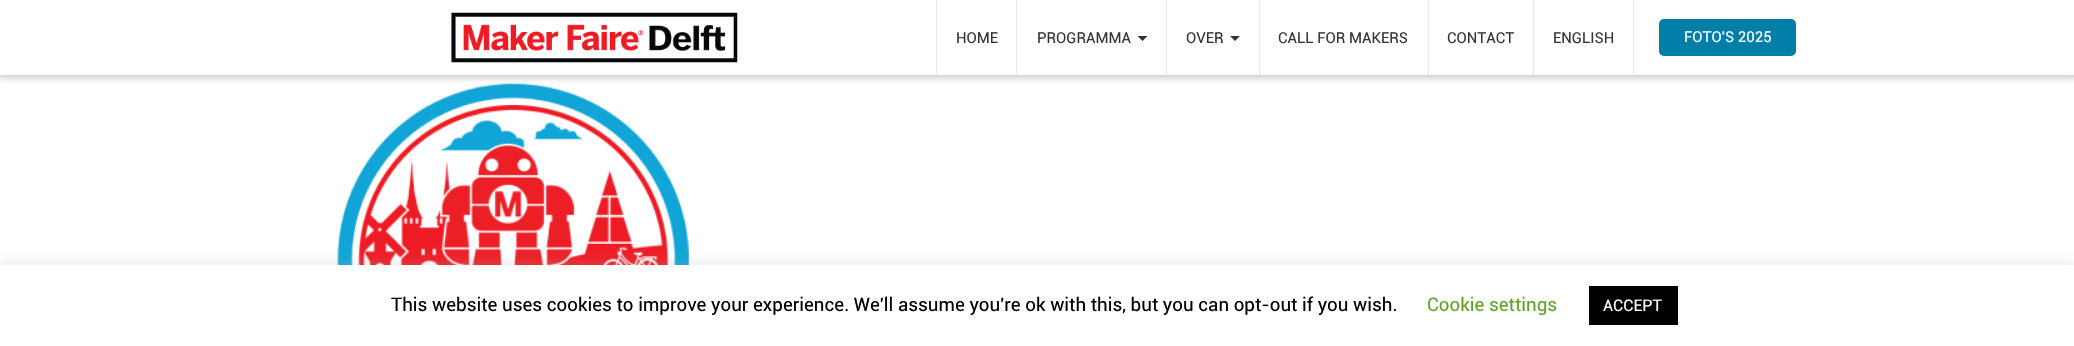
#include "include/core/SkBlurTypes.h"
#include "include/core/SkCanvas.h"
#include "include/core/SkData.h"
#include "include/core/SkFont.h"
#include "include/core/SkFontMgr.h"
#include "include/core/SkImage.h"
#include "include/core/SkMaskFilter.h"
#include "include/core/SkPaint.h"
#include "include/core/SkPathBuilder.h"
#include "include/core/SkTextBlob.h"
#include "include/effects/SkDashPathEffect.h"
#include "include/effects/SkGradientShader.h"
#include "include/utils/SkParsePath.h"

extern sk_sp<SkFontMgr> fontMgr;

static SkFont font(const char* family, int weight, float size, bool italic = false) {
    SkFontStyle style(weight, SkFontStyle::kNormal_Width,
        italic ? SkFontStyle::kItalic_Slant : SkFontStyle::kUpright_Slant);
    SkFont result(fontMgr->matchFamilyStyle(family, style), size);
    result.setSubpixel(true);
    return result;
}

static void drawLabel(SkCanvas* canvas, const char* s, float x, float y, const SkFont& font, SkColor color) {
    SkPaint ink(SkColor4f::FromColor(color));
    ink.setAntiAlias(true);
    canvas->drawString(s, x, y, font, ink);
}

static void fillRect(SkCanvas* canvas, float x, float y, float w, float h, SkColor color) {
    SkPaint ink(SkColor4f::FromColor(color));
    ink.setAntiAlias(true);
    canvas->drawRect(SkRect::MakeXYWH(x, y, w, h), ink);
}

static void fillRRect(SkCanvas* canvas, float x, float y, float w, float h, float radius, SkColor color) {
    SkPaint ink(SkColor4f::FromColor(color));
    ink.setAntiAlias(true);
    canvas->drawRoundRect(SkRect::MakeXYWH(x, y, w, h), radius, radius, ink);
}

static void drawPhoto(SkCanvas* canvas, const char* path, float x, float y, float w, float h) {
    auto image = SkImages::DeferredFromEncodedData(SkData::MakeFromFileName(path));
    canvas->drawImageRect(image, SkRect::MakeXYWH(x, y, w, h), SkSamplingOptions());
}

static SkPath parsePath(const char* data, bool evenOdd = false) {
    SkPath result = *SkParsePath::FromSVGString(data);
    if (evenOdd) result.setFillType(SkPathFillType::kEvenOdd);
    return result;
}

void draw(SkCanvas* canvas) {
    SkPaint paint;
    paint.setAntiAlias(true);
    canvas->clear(0xFFFFFFFF);
    drawPhoto(canvas, "assets/img2.png", 337, 82, 353, 183);
    canvas->save();
    canvas->clipRect(SkRect::MakeXYWH(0, 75, 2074, 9));
    paint.setColor(0xFFCCCCCC);
    paint.setMaskFilter(SkMaskFilter::MakeBlur(kNormal_SkBlurStyle, 3));
    canvas->drawRect(SkRect::MakeXYWH(-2, -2, 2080, 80), paint);
    paint.setMaskFilter(nullptr);
    canvas->restore();
    drawPhoto(canvas, "assets/img1.png", 451, 12, 287, 51);
    fillRect(canvas, 1016, 0, 1, 75, 0xFFE7E7E7);
    fillRect(canvas, 936, 0, 1, 75, 0xFFE7E7E7);
    SkFont font1 = font("Roboto", 400, 15);
    drawLabel(canvas, "HOME", 956, 43, font1, 0xFF333333);
    fillRect(canvas, 1166, 0, 1, 75, 0xFFE7E7E7);
    drawLabel(canvas, "PROGRAMMA", 1037, 43, font1, 0xFF333333);
    paint.setColor(0xFF333333);
    canvas->drawPath(parsePath("M1137.5 36H1147.5L1142.5 41Z"), paint);
    fillRect(canvas, 1259, 0, 1, 75, 0xFFE7E7E7);
    drawLabel(canvas, "OVER", 1186, 43, font1, 0xFF333333);
    canvas->drawPath(parsePath("M1230 36H1240L1235 41Z"), paint);
    fillRect(canvas, 1428, 0, 1, 75, 0xFFE7E7E7);
    drawLabel(canvas, "CALL FOR MAKERS", 1278, 43, font1, 0xFF333333);
    fillRect(canvas, 1533, 0, 1, 75, 0xFFE7E7E7);
    drawLabel(canvas, "CONTACT", 1447, 43, font1, 0xFF333333);
    fillRect(canvas, 1633, 0, 1, 75, 0xFFE7E7E7);
    drawLabel(canvas, "ENGLISH", 1553, 43, font1, 0xFF333333);
    fillRRect(canvas, 1659, 19, 137, 37, 5, 0xFF007EA8);
    drawLabel(canvas, "FOTO'S 2025", 1684, 42, font1, 0xFFFFFFFF);
    paint.setColor(0x4DACABAB);
    paint.setMaskFilter(SkMaskFilter::MakeBlur(kNormal_SkBlurStyle, 6));
    canvas->drawRect(SkRect::MakeXYWH(0, 264, 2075, 81), paint);
    paint.setMaskFilter(nullptr);
    fillRect(canvas, 0, 265, 2074, 81, 0xFFFFFFFF);
    SkFont font2 = font("Roboto", 400, 18.75f);
    drawLabel(canvas, "This website uses cookies to improve your experience. We'll assume you're ok with this, but you can opt-out if you wish.", 391, 311, font2, 0xFF000000);
    drawLabel(canvas, "Cookie settings", 1427, 311, font2, 0xFF62A329);
    fillRect(canvas, 1589, 286, 89, 39, 0xFF000000);
    SkFont font3 = font("Roboto", 400, 16);
    drawLabel(canvas, "ACCEPT", 1603, 311, font3, 0xFFFFFFFF);
}
